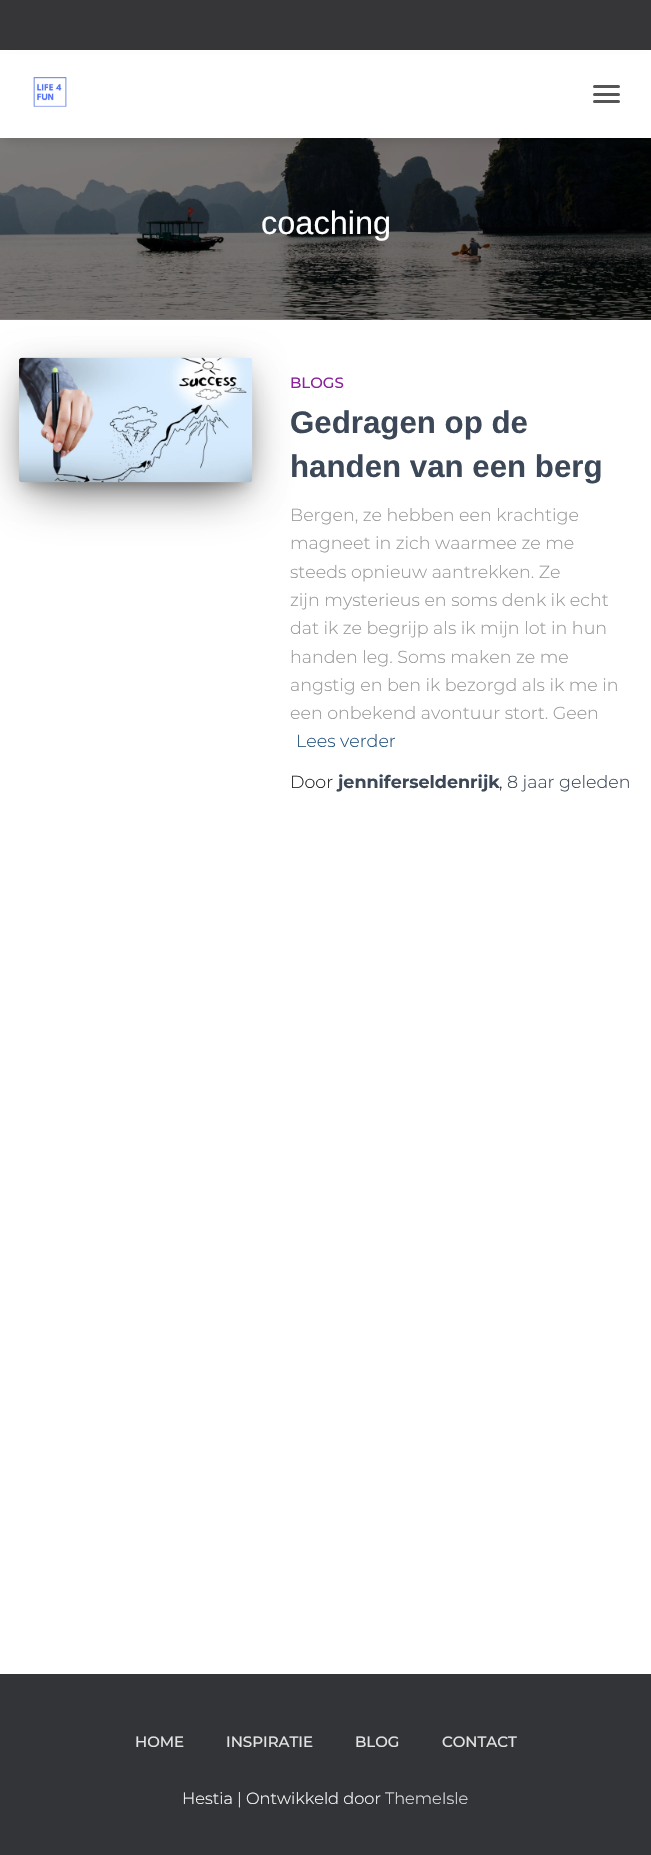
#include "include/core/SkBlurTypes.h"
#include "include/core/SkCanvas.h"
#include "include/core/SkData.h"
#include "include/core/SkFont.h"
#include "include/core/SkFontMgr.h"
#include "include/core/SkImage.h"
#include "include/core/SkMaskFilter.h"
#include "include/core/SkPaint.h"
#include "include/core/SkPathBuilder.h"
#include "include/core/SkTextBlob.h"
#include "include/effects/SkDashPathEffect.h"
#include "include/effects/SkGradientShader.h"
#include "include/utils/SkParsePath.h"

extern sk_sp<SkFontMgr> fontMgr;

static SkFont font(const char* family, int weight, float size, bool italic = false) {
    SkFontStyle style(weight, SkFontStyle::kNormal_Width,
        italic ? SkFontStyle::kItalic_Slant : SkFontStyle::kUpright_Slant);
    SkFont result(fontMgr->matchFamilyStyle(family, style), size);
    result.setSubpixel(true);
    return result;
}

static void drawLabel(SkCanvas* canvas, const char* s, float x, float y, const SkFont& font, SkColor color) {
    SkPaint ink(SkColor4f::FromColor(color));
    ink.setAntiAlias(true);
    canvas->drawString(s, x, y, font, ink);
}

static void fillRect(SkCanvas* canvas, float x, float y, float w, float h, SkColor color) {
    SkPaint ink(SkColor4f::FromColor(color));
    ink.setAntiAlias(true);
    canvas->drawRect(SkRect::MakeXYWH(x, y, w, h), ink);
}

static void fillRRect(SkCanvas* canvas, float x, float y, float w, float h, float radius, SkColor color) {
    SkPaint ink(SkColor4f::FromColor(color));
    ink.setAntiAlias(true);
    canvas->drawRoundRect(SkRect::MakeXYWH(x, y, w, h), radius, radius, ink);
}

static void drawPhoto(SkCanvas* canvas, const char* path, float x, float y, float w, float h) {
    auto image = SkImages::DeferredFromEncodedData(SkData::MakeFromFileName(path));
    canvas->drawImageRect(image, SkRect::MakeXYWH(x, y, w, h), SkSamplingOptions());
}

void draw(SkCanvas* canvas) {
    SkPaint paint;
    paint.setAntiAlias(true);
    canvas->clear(0xFFFFFFFF);
    fillRect(canvas, 0, 0, 651, 50, 0xFF363537);
    drawPhoto(canvas, "assets/img2.png", 0, 138, 651, 182);
    paint.setColor(0x26000000);
    paint.setMaskFilter(SkMaskFilter::MakeBlur(kNormal_SkBlurStyle, 6));
    canvas->drawRect(SkRect::MakeXYWH(5, 63, 641, 77), paint);
    paint.setMaskFilter(nullptr);
    fillRect(canvas, 0, 54, 651, 84, 0xFFFFFFFF);
    drawPhoto(canvas, "assets/img1.png", 33, 77, 34, 30);
    fillRRect(canvas, 593, 85, 27, 3, 1.5f, 0xFF555555);
    fillRRect(canvas, 593, 93, 27, 3, 1.5f, 0xFF555555);
    fillRRect(canvas, 593, 100, 27, 3, 1.5f, 0xFF555555);
    SkFont font1 = font("Liberation Sans", 400, 32.5f);
    drawLabel(canvas, "coaching", 261, 234, font1, 0xFFFFFFFF);
    paint.setColor(0x33000000);
    paint.setMaskFilter(SkMaskFilter::MakeBlur(kNormal_SkBlurStyle, 6));
    canvas->drawRect(SkRect::MakeXYWH(25, 374, 221, 112), paint);
    paint.setMaskFilter(nullptr);
    paint.setColor(0x1F000000);
    paint.setMaskFilter(SkMaskFilter::MakeBlur(kNormal_SkBlurStyle, 15.5f));
    canvas->drawRoundRect(SkRect::MakeXYWH(19, 363, 234, 125), 4, 4, paint);
    paint.setMaskFilter(nullptr);
    paint.setColor(0x8F000000);
    paint.setMaskFilter(SkMaskFilter::MakeBlur(kNormal_SkBlurStyle, 24));
    canvas->drawRect(SkRect::MakeXYWH(34, 393, 204, 95), paint);
    paint.setMaskFilter(nullptr);
    drawPhoto(canvas, "assets/img3.png", 19, 357, 234, 126);
    SkFont font2 = font("Montserrat", 500, 15);
    drawLabel(canvas, "BLOGS", 290, 388, font2, 0xFF89229B);
    SkFont font3 = font("Liberation Sans", 700, 31.25f);
    drawLabel(canvas, "Gedragen op de", 290, 433, font3, 0xFF3C4858);
    drawLabel(canvas, "handen van een berg", 290, 477, font3, 0xFF3C4858);
    SkFont font4 = font("Montserrat", 300, 17.5f);
    drawLabel(canvas, "Bergen, ze hebben een krachtige", 290, 521, font4, 0xFF999999);
    drawLabel(canvas, "magneet in zich waarmee ze me", 290, 549, font4, 0xFF999999);
    drawLabel(canvas, "steeds opnieuw aantrekken. Ze", 290, 578, font4, 0xFF999999);
    drawLabel(canvas, "zijn mysterieus en soms denk ik echt", 290, 606, font4, 0xFF999999);
    drawLabel(canvas, "dat ik ze begrijp als ik mijn lot in hun", 290, 634, font4, 0xFF999999);
    drawLabel(canvas, "handen leg. Soms maken ze me", 290, 663, font4, 0xFF999999);
    drawLabel(canvas, "angstig en ben ik bezorgd als ik me in", 290, 691, font4, 0xFF999999);
    drawLabel(canvas, "een onbekend avontuur stort. Geen", 290, 719, font4, 0xFF999999);
    drawLabel(canvas, "Lees verder", 296, 747, font4, 0xFF23527C);
    drawLabel(canvas, "Door", 290, 788, font4, 0xFF212121);
    SkFont font5 = font("Montserrat", 700, 17.5f);
    drawLabel(canvas, "jenniferseldenrijk", 338, 788, font5, 0xFF3C4858);
    drawLabel(canvas, ",", 499, 788, font4, 0xFF212121);
    drawLabel(canvas, "8 jaar geleden", 507, 788, font4, 0xFF3C4858);
    fillRect(canvas, 0, 1674, 651, 181, 0xFF323437);
    drawLabel(canvas, "HOME", 135, 1747, font2, 0xFFE2E3E3);
    drawLabel(canvas, "INSPIRATIE", 226, 1747, font2, 0xFFE2E3E3);
    drawLabel(canvas, "BLOG", 355, 1747, font2, 0xFFE2E3E3);
    drawLabel(canvas, "CONTACT", 442, 1747, font2, 0xFFE2E3E3);
    SkFont font6 = font("Montserrat", 300, 16.25f);
    drawLabel(canvas, "Hestia | Ontwikkeld door", 182, 1804, font6, 0xFFFFFFFF);
    drawLabel(canvas, "ThemeIsle", 385, 1804, font6, 0xFFE2E3E3);
}
